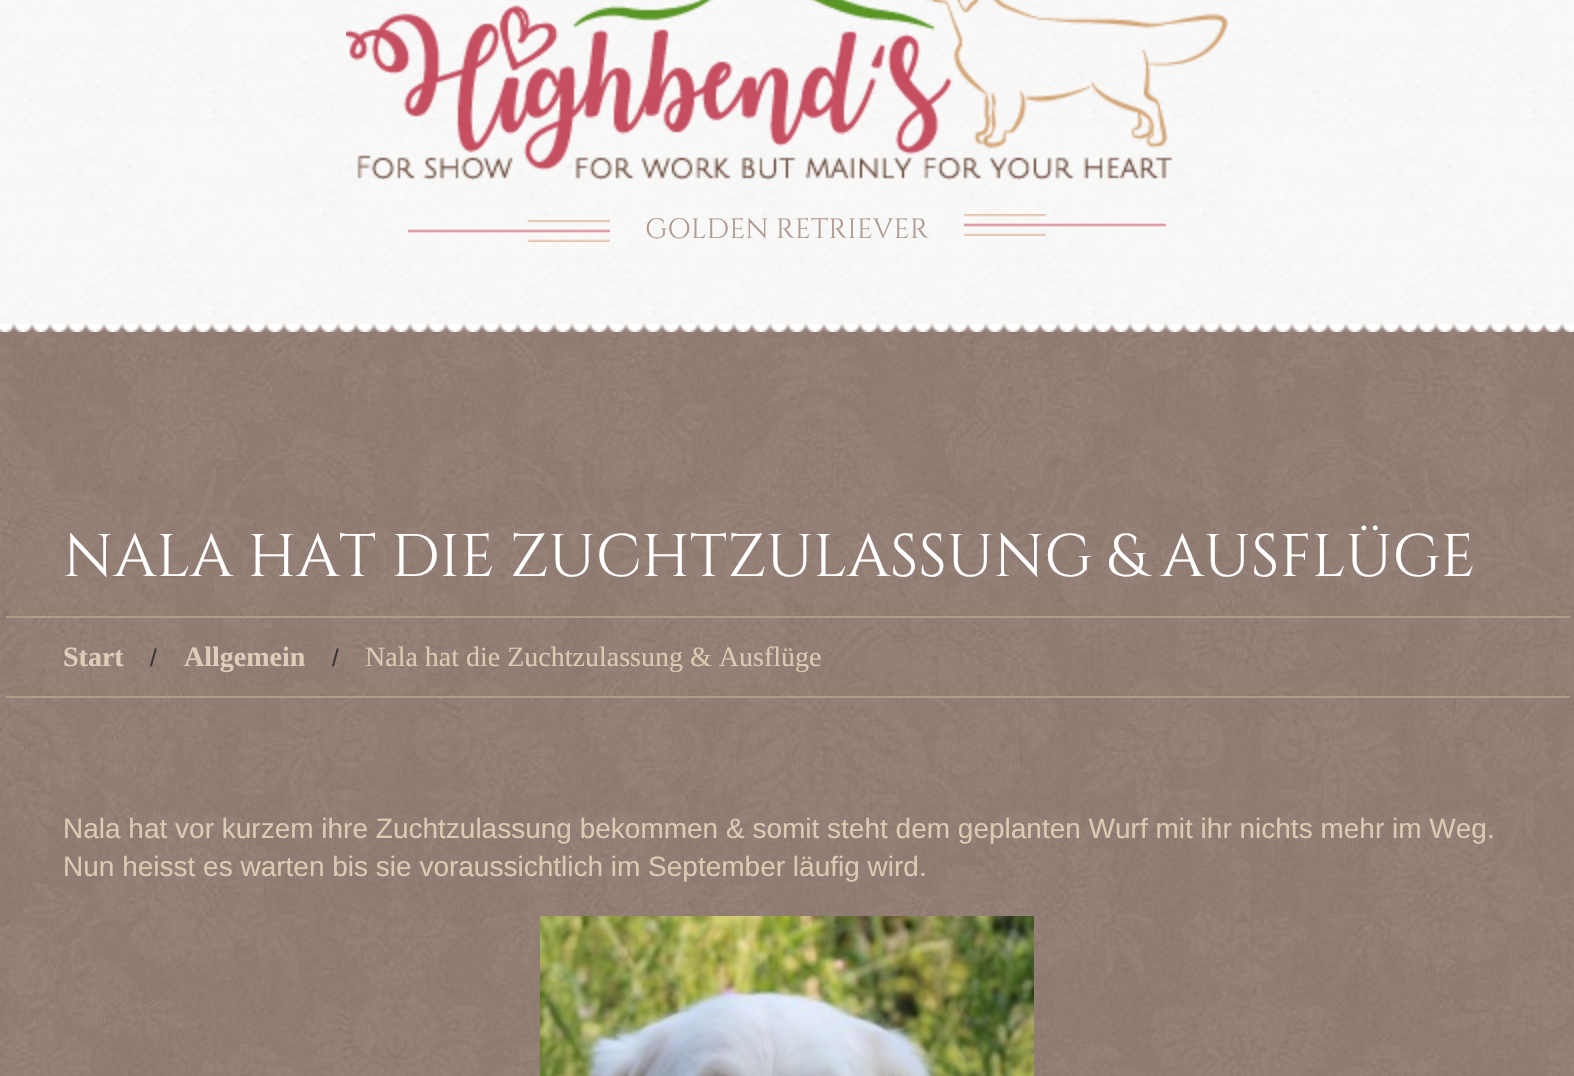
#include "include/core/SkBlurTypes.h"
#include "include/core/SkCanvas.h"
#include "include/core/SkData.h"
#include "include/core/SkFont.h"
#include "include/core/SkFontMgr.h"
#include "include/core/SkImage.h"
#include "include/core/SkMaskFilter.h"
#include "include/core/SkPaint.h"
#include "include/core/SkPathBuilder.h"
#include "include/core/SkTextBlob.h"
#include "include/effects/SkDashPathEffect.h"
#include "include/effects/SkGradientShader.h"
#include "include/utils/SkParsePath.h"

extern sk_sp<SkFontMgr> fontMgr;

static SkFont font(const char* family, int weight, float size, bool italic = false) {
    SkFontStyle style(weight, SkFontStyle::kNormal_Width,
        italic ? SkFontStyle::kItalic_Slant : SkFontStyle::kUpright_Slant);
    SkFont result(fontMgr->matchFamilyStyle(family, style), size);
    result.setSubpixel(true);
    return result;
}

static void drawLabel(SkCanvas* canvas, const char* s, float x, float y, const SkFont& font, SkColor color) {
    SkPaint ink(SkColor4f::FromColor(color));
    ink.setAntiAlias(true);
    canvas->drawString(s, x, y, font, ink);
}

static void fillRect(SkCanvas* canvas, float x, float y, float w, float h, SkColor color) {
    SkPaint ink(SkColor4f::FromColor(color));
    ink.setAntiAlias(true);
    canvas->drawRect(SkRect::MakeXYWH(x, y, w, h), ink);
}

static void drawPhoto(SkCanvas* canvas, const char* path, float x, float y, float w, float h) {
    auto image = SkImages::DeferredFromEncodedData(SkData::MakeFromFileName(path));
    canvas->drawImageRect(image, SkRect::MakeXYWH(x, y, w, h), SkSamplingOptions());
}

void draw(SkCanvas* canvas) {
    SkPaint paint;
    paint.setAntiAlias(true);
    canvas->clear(0xFFFFFFFF);
    drawPhoto(canvas, "assets/img1.png", 0, 0, 1574, 324);
    drawPhoto(canvas, "assets/img2.png", 9, 12, 1562, 312);
    drawPhoto(canvas, "assets/img3.png", 346, 0, 882, 180);
    drawPhoto(canvas, "assets/img4.png", 408, 220, 202, 22);
    SkFont font1 = font("Cinzel", 400, 28);
    drawLabel(canvas, "GOLDEN RETRIEVER", 645, 238, font1, 0xFFB19A90);
    drawPhoto(canvas, "assets/img5.png", 964, 214, 202, 22);
    drawPhoto(canvas, "assets/img7.png", 0, 324, 1574, 752);
    drawPhoto(canvas, "assets/img6.png", 0, 324, 1574, 8);
    SkFont font2 = font("Cinzel", 400, 60);
    drawLabel(canvas, "NALA HAT DIE ZUCHTZULASSUNG & AUSFLÜGE", 63, 576, font2, 0xFFFFFFFF);
    fillRect(canvas, 6, 616, 1564, 2, 0xFFAF9E85);
    fillRect(canvas, 6, 696, 1564, 2, 0xFFAF9E85);
    SkFont font3 = font("Liberation Serif", 700, 28);
    drawLabel(canvas, "Start", 63, 666, font3, 0xFFDECDB9);
    SkFont font4 = font("Liberation Sans", 400, 24);
    drawLabel(canvas, "/", 150, 666, font4, 0xFF333333);
    drawLabel(canvas, "Allgemein", 184, 666, font3, 0xFFDECDB9);
    drawLabel(canvas, "/", 332, 666, font4, 0xFF333333);
    SkFont font5 = font("Liberation Serif", 400, 28);
    drawLabel(canvas, "Nala hat die Zuchtzulassung & Ausflüge", 365, 666, font5, 0xFFDACBB2);
    SkFont font6 = font("Liberation Sans", 400, 28);
    drawLabel(canvas, "Nala hat vor kurzem ihre Zuchtzulassung bekommen & somit steht dem geplanten Wurf mit ihr nichts mehr im Weg.", 63, 838, font6, 0xFFDACBB2);
    drawLabel(canvas, "Nun heisst es warten bis sie voraussichtlich im September läufig wird.", 63, 876, font6, 0xFFDACBB2);
    drawPhoto(canvas, "assets/img8.png", 540, 916, 494, 160);
}
